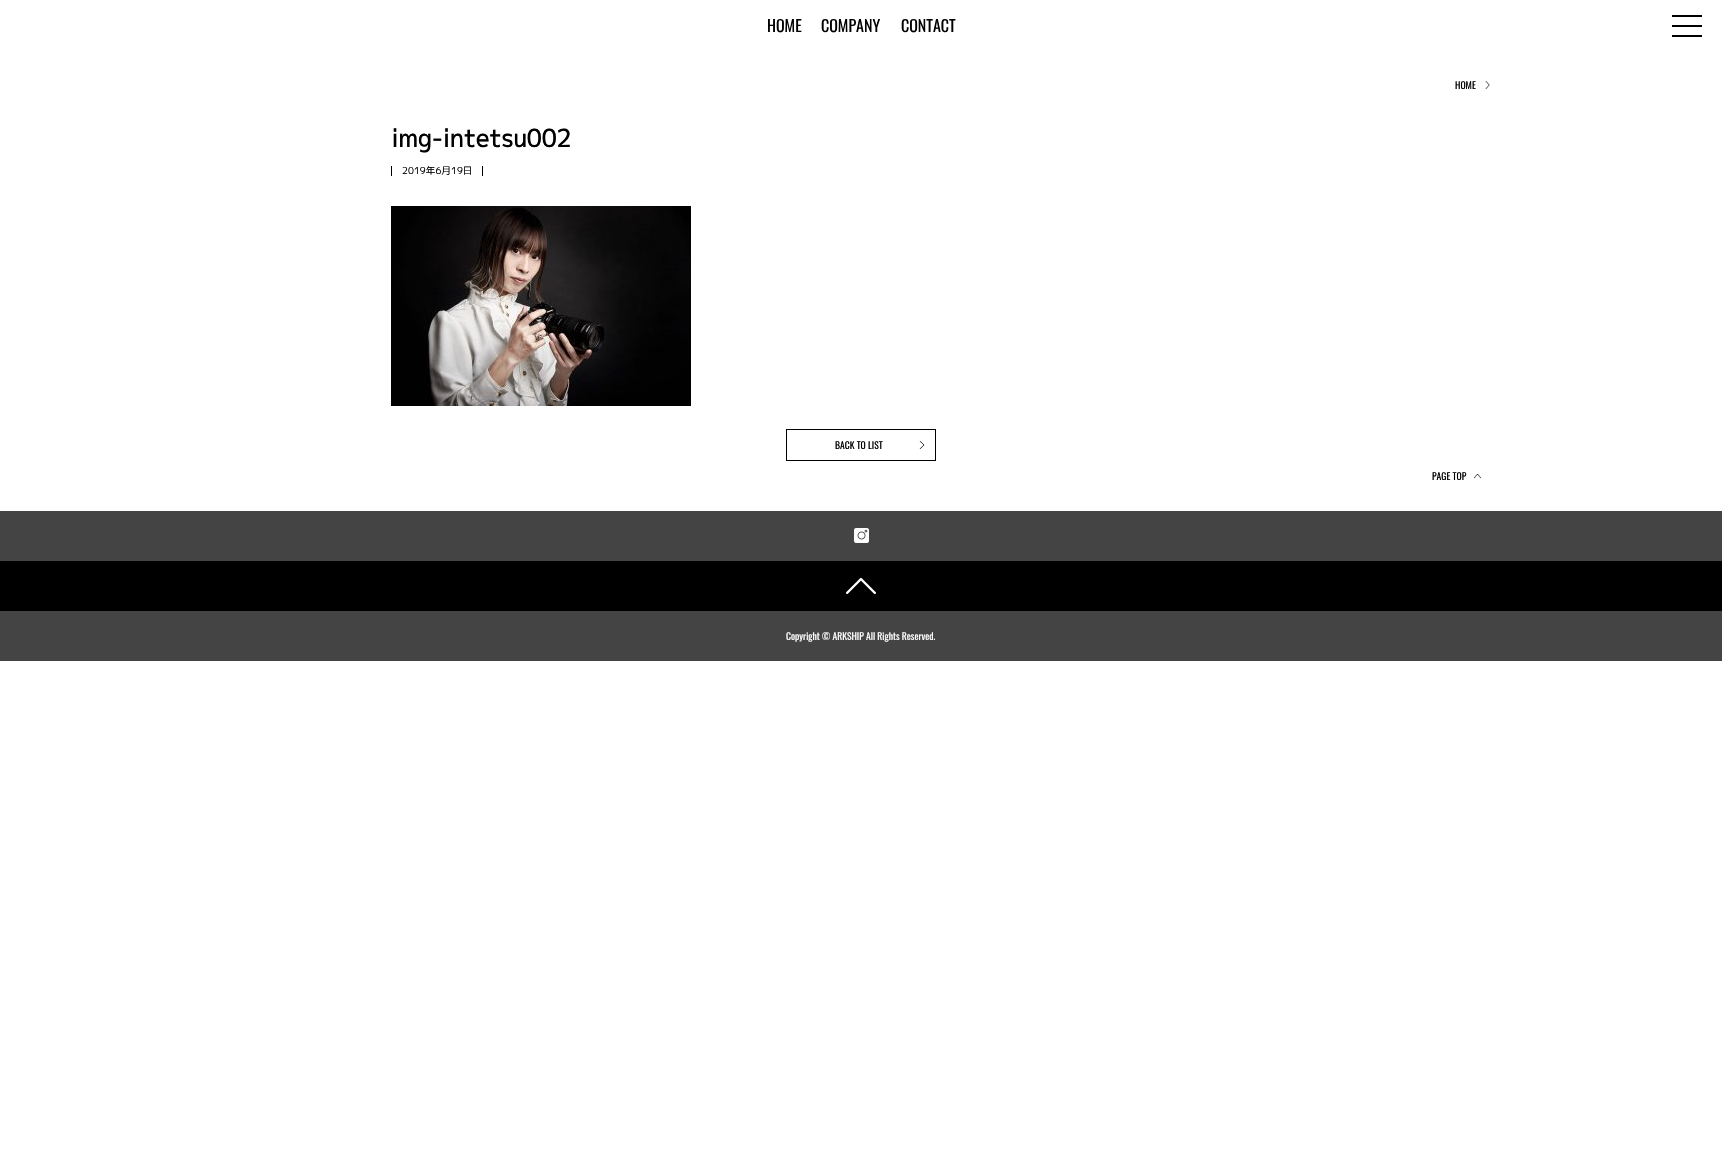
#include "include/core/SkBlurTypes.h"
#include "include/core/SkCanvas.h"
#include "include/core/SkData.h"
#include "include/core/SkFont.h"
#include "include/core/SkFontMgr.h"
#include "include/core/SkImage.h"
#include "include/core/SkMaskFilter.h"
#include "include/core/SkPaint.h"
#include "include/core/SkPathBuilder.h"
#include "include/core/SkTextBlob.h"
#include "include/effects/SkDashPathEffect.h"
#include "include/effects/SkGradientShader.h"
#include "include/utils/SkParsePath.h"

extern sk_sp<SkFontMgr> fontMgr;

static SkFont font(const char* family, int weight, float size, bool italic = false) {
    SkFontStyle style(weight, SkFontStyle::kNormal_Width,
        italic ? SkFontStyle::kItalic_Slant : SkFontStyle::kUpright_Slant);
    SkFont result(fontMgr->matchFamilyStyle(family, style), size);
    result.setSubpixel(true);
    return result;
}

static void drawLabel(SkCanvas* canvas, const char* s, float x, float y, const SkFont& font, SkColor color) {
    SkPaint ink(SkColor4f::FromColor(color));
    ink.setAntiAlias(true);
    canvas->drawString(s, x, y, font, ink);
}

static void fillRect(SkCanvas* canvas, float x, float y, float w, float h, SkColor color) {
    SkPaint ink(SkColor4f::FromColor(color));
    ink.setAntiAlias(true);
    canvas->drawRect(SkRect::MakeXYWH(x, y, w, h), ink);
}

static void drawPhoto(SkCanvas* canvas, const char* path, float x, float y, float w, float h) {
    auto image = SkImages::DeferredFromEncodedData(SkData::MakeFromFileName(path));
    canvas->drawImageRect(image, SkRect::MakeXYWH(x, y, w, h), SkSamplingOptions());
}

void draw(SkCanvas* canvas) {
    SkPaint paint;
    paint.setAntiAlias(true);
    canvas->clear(0xFFFFFFFF);
    SkFont font1 = font("Oswald", 400, 16);
    drawLabel(canvas, "HOME", 767, 32, font1, 0xFF000000);
    drawLabel(canvas, "COMPANY", 821, 32, font1, 0xFF000000);
    drawLabel(canvas, "CONTACT", 901, 32, font1, 0xFF000000);
    fillRect(canvas, 1672, 25, 30, 2, 0xFF000000);
    fillRect(canvas, 1672, 15, 30, 2, 0xFF000000);
    fillRect(canvas, 1672, 35, 30, 2, 0xFF000000);
    drawPhoto(canvas, "assets/img1.png", 1485, 81, 5, 8);
    SkFont font2 = font("Oswald", 400, 9.6f);
    drawLabel(canvas, "HOME", 1455, 89, font2, 0xFF000000);
    SkFont font3 = font("M PLUS 1p", 700, 24);
    drawLabel(canvas, "img-intetsu002", 391, 147, font3, 0xFF000000);
    fillRect(canvas, 482, 166, 1, 10, 0xFF000000);
    fillRect(canvas, 391, 166, 1, 10, 0xFF000000);
    SkFont font4 = font("M PLUS 1p", 400, 9.6f);
    drawLabel(canvas, "2019年6月19日", 402, 174, font4, 0xFF000000);
    drawPhoto(canvas, "assets/img2.png", 391, 206, 300, 200);
    drawPhoto(canvas, "assets/img3.png", 919, 441, 6, 8);
    paint.setStroke(true);
    paint.setStrokeWidth(1);
    paint.setColor(0xFF000000);
    canvas->drawRect(SkRect::MakeXYWH(786.5f, 429.5f, 149, 31), paint);
    drawLabel(canvas, "BACK TO LIST", 835, 449, font2, 0xFF000000);
    drawPhoto(canvas, "assets/img4.png", 1474, 474, 7, 5);
    drawLabel(canvas, "PAGE TOP", 1432, 480, font2, 0xFF000000);
    fillRect(canvas, 0, 511, 1722, 50, 0xFF444444);
    drawPhoto(canvas, "assets/img5.png", 854, 528, 15, 15);
    fillRect(canvas, 0, 561, 1722, 50, 0xFF000000);
    drawPhoto(canvas, "assets/img6.png", 846, 577, 30, 18);
    fillRect(canvas, 0, 611, 1722, 50, 0xFF444444);
    drawLabel(canvas, "Copyright © ARKSHIP All Rights Reserved.", 786, 640, font2, 0xFFFFFFFF);
}
